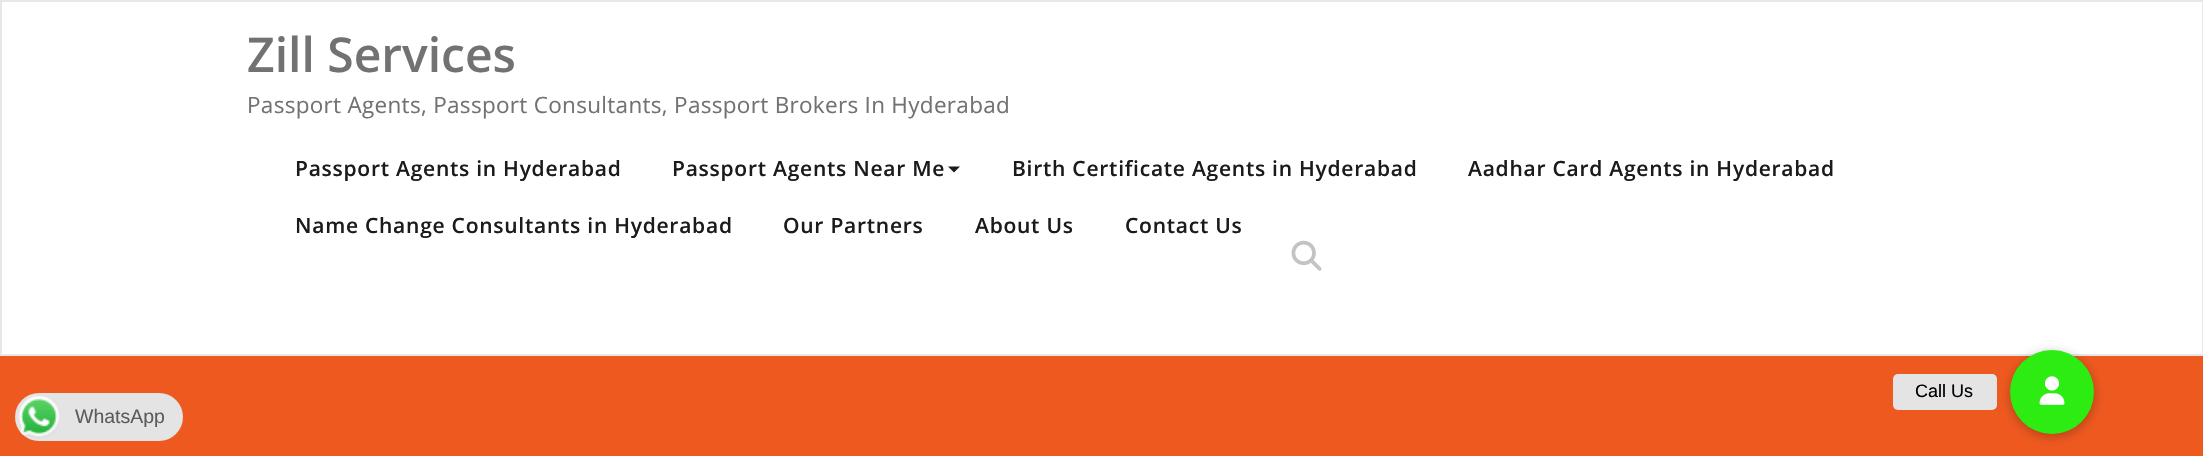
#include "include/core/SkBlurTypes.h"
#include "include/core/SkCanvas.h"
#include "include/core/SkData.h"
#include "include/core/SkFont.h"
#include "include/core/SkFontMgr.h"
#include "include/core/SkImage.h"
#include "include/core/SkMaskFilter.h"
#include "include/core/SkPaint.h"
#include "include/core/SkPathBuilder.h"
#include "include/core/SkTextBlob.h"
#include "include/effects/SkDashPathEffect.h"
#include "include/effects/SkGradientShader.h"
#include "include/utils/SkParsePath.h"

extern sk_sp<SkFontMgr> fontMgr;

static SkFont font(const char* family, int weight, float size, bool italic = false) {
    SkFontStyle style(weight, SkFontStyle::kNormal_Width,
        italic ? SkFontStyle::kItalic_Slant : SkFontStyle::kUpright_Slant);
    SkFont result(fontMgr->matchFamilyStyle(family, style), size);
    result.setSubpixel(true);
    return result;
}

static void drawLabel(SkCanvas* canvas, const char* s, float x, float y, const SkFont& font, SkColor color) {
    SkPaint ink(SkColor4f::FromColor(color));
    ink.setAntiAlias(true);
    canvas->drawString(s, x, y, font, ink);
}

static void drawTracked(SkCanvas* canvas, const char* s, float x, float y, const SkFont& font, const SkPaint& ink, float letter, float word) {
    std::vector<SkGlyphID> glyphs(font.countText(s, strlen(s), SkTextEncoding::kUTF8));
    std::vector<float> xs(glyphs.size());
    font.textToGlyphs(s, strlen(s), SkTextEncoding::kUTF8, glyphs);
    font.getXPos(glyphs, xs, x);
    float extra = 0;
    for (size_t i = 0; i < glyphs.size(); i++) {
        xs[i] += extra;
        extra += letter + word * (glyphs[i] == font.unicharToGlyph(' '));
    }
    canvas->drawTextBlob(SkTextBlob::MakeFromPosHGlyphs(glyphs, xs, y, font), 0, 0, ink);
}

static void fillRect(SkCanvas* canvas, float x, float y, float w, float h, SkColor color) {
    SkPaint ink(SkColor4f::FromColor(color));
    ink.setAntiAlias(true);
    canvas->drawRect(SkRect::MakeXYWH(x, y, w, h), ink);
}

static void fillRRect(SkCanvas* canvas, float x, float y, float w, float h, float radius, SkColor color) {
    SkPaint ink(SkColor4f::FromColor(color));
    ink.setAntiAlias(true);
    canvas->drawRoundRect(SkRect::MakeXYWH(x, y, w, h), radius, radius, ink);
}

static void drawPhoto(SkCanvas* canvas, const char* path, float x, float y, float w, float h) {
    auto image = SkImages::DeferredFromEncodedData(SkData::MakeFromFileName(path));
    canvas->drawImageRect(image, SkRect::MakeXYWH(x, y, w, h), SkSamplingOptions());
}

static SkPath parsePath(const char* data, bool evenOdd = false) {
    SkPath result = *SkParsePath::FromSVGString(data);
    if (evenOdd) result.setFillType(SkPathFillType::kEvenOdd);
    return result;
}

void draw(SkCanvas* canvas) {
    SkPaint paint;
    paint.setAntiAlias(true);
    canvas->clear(0xFFFFFFFF);
    paint.setStroke(true);
    paint.setStrokeWidth(2);
    paint.setColor(0xFFE7E7E7);
    canvas->drawRect(SkRect::MakeXYWH(1, 1, 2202, 354), paint);
    SkFont font1 = font("Open Sans", 600, 48);
    drawLabel(canvas, "Zill Services", 247, 72, font1, 0xFF727272);
    SkFont font2 = font("Open Sans", 400, 22.5f);
    paint.setStroke(false);
    paint.setColor(0xFF727272);
    drawTracked(canvas, "Passport Agents, Passport Consultants, Passport Brokers In Hyderabad", 247, 113, font2, paint, 0.3f, 0);
    SkFont font3 = font("Open Sans", 600, 21);
    paint.setColor(0xFF1B1B1B);
    drawTracked(canvas, "Passport Agents in Hyderabad", 295, 176, font3, paint, 0.75f, 0);
    drawTracked(canvas, "Passport Agents Near Me", 672, 176, font3, paint, 0.75f, 0);
    canvas->drawPath(parsePath("M948 166.5H960L954 172.5Z"), paint);
    drawTracked(canvas, "Birth Certificate Agents in Hyderabad", 1012, 176, font3, paint, 0.75f, 0);
    drawTracked(canvas, "Aadhar Card Agents in Hyderabad", 1468, 176, font3, paint, 0.75f, 0);
    drawTracked(canvas, "Name Change Consultants in Hyderabad", 295, 233, font3, paint, 0.75f, 0);
    drawTracked(canvas, "Our Partners", 783, 233, font3, paint, 0.75f, 0);
    drawTracked(canvas, "About Us", 975, 233, font3, paint, 0.75f, 0);
    drawTracked(canvas, "Contact Us", 1125, 233, font3, paint, 0.75f, 0);
    drawPhoto(canvas, "assets/img1.png", 1291, 240, 31, 31);
    fillRect(canvas, 0, 356, 2203, 100, 0xFFEE591F);
    paint.setColor(0x33000000);
    paint.setMaskFilter(SkMaskFilter::MakeBlur(kNormal_SkBlurStyle, 4.5f));
    canvas->drawRoundRect(SkRect::MakeXYWH(2009, 351, 87, 87), 43.5f, 43.5f, paint);
    paint.setMaskFilter(nullptr);
    paint.setColor(0xFF2DEC11);
    canvas->drawCircle(2052, 392, 42, paint);
    fillRRect(canvas, 1893, 374, 104, 36, 5, 0xFFE4E4E4);
    SkFont font4 = font("Liberation Sans", 400, 18);
    drawLabel(canvas, "Call Us", 1915, 397, font4, 0xFF000000);
    drawPhoto(canvas, "assets/img2.png", 2039, 376, 26, 29);
    fillRRect(canvas, 15, 393, 168, 48, 24, 0xFFE4E4E4);
    drawPhoto(canvas, "assets/img3.png", 18, 396, 42, 42);
    SkFont font5 = font("Liberation Sans", 400, 19.5f);
    drawLabel(canvas, "WhatsApp", 75, 423, font5, 0xFF5B5B5B);
}
